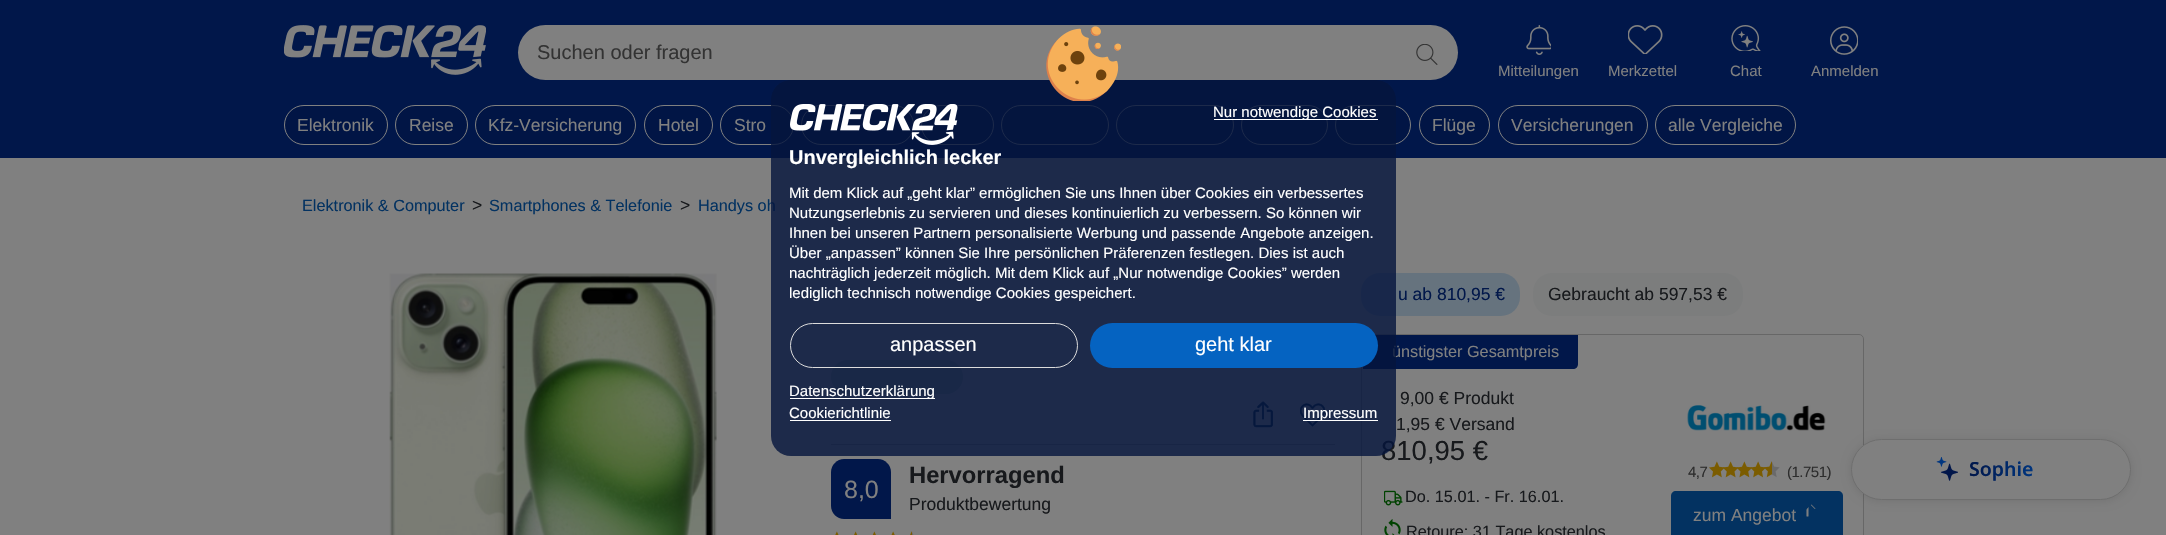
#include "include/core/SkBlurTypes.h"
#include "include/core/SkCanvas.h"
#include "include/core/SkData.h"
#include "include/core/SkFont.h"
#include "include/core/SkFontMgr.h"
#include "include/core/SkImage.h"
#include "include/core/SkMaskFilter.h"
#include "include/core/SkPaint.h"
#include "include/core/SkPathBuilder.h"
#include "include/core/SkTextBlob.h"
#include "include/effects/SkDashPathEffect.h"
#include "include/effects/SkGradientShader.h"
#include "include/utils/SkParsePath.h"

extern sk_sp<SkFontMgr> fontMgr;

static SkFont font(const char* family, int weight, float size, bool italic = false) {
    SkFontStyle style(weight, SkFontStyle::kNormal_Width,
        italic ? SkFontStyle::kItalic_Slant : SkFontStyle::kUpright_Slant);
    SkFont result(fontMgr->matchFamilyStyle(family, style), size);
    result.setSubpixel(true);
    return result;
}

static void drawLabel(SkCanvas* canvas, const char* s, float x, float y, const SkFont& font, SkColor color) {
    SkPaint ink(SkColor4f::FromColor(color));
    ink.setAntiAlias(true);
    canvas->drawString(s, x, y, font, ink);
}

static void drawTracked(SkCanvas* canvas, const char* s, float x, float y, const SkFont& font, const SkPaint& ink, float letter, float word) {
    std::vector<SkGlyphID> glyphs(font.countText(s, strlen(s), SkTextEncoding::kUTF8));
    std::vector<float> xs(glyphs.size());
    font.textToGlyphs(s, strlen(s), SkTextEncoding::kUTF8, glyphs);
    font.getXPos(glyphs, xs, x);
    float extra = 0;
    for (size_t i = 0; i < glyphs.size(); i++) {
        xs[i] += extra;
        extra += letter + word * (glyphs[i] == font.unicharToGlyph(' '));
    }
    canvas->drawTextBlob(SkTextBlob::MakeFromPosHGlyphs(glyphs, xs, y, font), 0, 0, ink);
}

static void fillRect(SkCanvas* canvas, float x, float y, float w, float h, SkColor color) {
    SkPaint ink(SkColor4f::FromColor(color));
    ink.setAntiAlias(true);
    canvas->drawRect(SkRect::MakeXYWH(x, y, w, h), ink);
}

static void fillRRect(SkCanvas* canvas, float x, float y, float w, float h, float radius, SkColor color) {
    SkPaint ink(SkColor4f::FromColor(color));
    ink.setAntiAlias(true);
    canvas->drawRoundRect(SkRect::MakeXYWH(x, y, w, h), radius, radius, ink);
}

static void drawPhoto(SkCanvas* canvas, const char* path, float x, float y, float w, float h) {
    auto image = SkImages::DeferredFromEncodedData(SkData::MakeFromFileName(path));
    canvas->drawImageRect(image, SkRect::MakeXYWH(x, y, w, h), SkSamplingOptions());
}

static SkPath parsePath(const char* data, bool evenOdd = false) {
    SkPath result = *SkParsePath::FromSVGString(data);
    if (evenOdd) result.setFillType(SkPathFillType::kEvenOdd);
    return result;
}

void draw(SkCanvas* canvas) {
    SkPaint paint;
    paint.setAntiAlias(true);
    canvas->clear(0xFF808080);
    fillRect(canvas, 0, 0, 2166, 158, 0xFF01174A);
    drawPhoto(canvas, "assets/img1.png", 284, 25, 202, 50);
    fillRRect(canvas, 518, 25, 940, 55, 27.5f, 0xFF808080);
    SkFont font1 = font("Liberation Sans", 400, 20);
    drawLabel(canvas, "Suchen oder fragen", 537, 59, font1, 0xFF333333);
    drawPhoto(canvas, "assets/img2.png", 1416, 44, 22, 21);
    drawPhoto(canvas, "assets/img3.png", 1526, 25, 25, 30);
    SkFont font2 = font("Liberation Sans", 400, 15);
    drawLabel(canvas, "Mitteilungen", 1498, 76, font2, 0xFF808080);
    drawPhoto(canvas, "assets/img4.png", 1628, 25, 35, 29);
    drawLabel(canvas, "Merkzettel", 1608, 76, font2, 0xFF808080);
    drawPhoto(canvas, "assets/img5.png", 1731, 25, 30, 26);
    drawLabel(canvas, "Chat", 1730, 76, font2, 0xFF808080);
    drawPhoto(canvas, "assets/img6.png", 1830, 26, 28, 29);
    drawLabel(canvas, "Anmelden", 1811, 76, font2, 0xFF808080);
    paint.setColor(0xFF011545);
    canvas->drawRoundRect(SkRect::MakeXYWH(284.5f, 105.5f, 103, 39), 19.5f, 19.5f, paint);
    paint.setStroke(true);
    paint.setStrokeWidth(1);
    paint.setColor(0xFF808080);
    canvas->drawRoundRect(SkRect::MakeXYWH(284.5f, 105.5f, 103, 39), 19.5f, 19.5f, paint);
    SkFont font3 = font("Liberation Sans", 400, 17.5f);
    drawLabel(canvas, "Elektronik", 297, 131, font3, 0xFF808080);
    paint.setStroke(false);
    paint.setColor(0xFF011545);
    canvas->drawRoundRect(SkRect::MakeXYWH(395.5f, 105.5f, 72, 39), 19.5f, 19.5f, paint);
    paint.setStroke(true);
    paint.setColor(0xFF808080);
    canvas->drawRoundRect(SkRect::MakeXYWH(395.5f, 105.5f, 72, 39), 19.5f, 19.5f, paint);
    drawLabel(canvas, "Reise", 409, 131, font3, 0xFF808080);
    paint.setStroke(false);
    paint.setColor(0xFF011545);
    canvas->drawRoundRect(SkRect::MakeXYWH(475.5f, 105.5f, 160, 39), 19.5f, 19.5f, paint);
    paint.setStroke(true);
    paint.setColor(0xFF808080);
    canvas->drawRoundRect(SkRect::MakeXYWH(475.5f, 105.5f, 160, 39), 19.5f, 19.5f, paint);
    drawLabel(canvas, "Kfz-Versicherung", 488, 131, font3, 0xFF808080);
    paint.setStroke(false);
    paint.setColor(0xFF011545);
    canvas->drawRoundRect(SkRect::MakeXYWH(644.5f, 105.5f, 68, 39), 19.5f, 19.5f, paint);
    paint.setStroke(true);
    paint.setColor(0xFF808080);
    canvas->drawRoundRect(SkRect::MakeXYWH(644.5f, 105.5f, 68, 39), 19.5f, 19.5f, paint);
    drawLabel(canvas, "Hotel", 658, 131, font3, 0xFF808080);
    paint.setStroke(false);
    paint.setColor(0xFF011545);
    canvas->drawRoundRect(SkRect::MakeXYWH(720.5f, 105.5f, 73, 39), 19.5f, 19.5f, paint);
    paint.setStroke(true);
    paint.setColor(0xFF808080);
    canvas->drawRoundRect(SkRect::MakeXYWH(720.5f, 105.5f, 73, 39), 19.5f, 19.5f, paint);
    drawLabel(canvas, "Stro", 734, 131, font3, 0xFF808080);
    paint.setStroke(false);
    paint.setColor(0xFF011545);
    canvas->drawRoundRect(SkRect::MakeXYWH(801.5f, 105.5f, 112, 39), 19.5f, 19.5f, paint);
    paint.setStroke(true);
    paint.setColor(0xFF808080);
    canvas->drawRoundRect(SkRect::MakeXYWH(801.5f, 105.5f, 112, 39), 19.5f, 19.5f, paint);
    paint.setStroke(false);
    paint.setColor(0xFF011545);
    canvas->drawRoundRect(SkRect::MakeXYWH(921.5f, 105.5f, 72, 39), 19.5f, 19.5f, paint);
    paint.setStroke(true);
    paint.setColor(0xFF808080);
    canvas->drawRoundRect(SkRect::MakeXYWH(921.5f, 105.5f, 72, 39), 19.5f, 19.5f, paint);
    paint.setStroke(false);
    paint.setColor(0xFF011545);
    canvas->drawRoundRect(SkRect::MakeXYWH(1001.5f, 105.5f, 107, 39), 19.5f, 19.5f, paint);
    paint.setStroke(true);
    paint.setColor(0xFF808080);
    canvas->drawRoundRect(SkRect::MakeXYWH(1001.5f, 105.5f, 107, 39), 19.5f, 19.5f, paint);
    paint.setStroke(false);
    paint.setColor(0xFF011545);
    canvas->drawRoundRect(SkRect::MakeXYWH(1116.5f, 105.5f, 117, 39), 19.5f, 19.5f, paint);
    paint.setStroke(true);
    paint.setColor(0xFF808080);
    canvas->drawRoundRect(SkRect::MakeXYWH(1116.5f, 105.5f, 117, 39), 19.5f, 19.5f, paint);
    paint.setStroke(false);
    paint.setColor(0xFF011545);
    canvas->drawRoundRect(SkRect::MakeXYWH(1241.5f, 105.5f, 86, 39), 19.5f, 19.5f, paint);
    paint.setStroke(true);
    paint.setColor(0xFF808080);
    canvas->drawRoundRect(SkRect::MakeXYWH(1241.5f, 105.5f, 86, 39), 19.5f, 19.5f, paint);
    paint.setStroke(false);
    paint.setColor(0xFF011545);
    canvas->drawRoundRect(SkRect::MakeXYWH(1335.5f, 105.5f, 75, 39), 19.5f, 19.5f, paint);
    paint.setStroke(true);
    paint.setColor(0xFF808080);
    canvas->drawRoundRect(SkRect::MakeXYWH(1335.5f, 105.5f, 75, 39), 19.5f, 19.5f, paint);
    paint.setStroke(false);
    paint.setColor(0xFF011545);
    canvas->drawRoundRect(SkRect::MakeXYWH(1419.5f, 105.5f, 70, 39), 19.5f, 19.5f, paint);
    paint.setStroke(true);
    paint.setColor(0xFF808080);
    canvas->drawRoundRect(SkRect::MakeXYWH(1419.5f, 105.5f, 70, 39), 19.5f, 19.5f, paint);
    drawLabel(canvas, "Flüge", 1432, 131, font3, 0xFF808080);
    paint.setStroke(false);
    paint.setColor(0xFF011545);
    canvas->drawRoundRect(SkRect::MakeXYWH(1498.5f, 105.5f, 149, 39), 19.5f, 19.5f, paint);
    paint.setStroke(true);
    paint.setColor(0xFF808080);
    canvas->drawRoundRect(SkRect::MakeXYWH(1498.5f, 105.5f, 149, 39), 19.5f, 19.5f, paint);
    drawLabel(canvas, "Versicherungen", 1511, 131, font3, 0xFF808080);
    paint.setStroke(false);
    paint.setColor(0xFF011545);
    canvas->drawRoundRect(SkRect::MakeXYWH(1655.5f, 105.5f, 140, 39), 19.5f, 19.5f, paint);
    paint.setStroke(true);
    paint.setColor(0xFF808080);
    canvas->drawRoundRect(SkRect::MakeXYWH(1655.5f, 105.5f, 140, 39), 19.5f, 19.5f, paint);
    drawLabel(canvas, "alle Vergleiche", 1668, 131, font3, 0xFF808080);
    SkFont font4 = font("Liberation Sans", 400, 16.25f);
    drawLabel(canvas, "Elektronik & Computer", 302, 211, font4, 0xFF033261);
    drawLabel(canvas, ">", 472, 211, font3, 0xFF17191C);
    drawLabel(canvas, "Smartphones & Telefonie", 489, 211, font4, 0xFF033261);
    drawLabel(canvas, ">", 680, 211, font3, 0xFF17191C);
    drawLabel(canvas, "Handys oh", 698, 211, font4, 0xFF033261);
    drawPhoto(canvas, "assets/img7.png", 389, 273, 328, 262);
    fillRRect(canvas, 831, 360, 132, 34, 17, 0xFF6A746F);
    fillRect(canvas, 831, 444, 504, 1, 0xFF686666);
    drawPhoto(canvas, "assets/img8.png", 1253, 401, 20, 27);
    drawPhoto(canvas, "assets/img9.png", 1300, 403, 25, 24);
    paint.setStroke(false);
    paint.setColor(0xFF01174A);
    canvas->drawPath(parsePath("M844 459H878C885 459 891 465 891 472V519H844C837 519 831 513 831 506V472C831 465 837 459 844 459Z"), paint);
    SkFont font5 = font("Liberation Sans", 400, 25);
    drawLabel(canvas, "8,0", 844, 498, font5, 0xFF808080);
    SkFont font6 = font("Liberation Sans", 700, 23.75f);
    drawLabel(canvas, "Hervorragend", 909, 483, font6, 0xFF17191C);
    drawLabel(canvas, "Produktbewertung", 909, 510, font3, 0xFF17191C);
    drawPhoto(canvas, "assets/img10.png", 835, 531, 4, 4);
    drawPhoto(canvas, "assets/img11.png", 854, 531, 4, 4);
    drawPhoto(canvas, "assets/img12.png", 872, 531, 4, 4);
    drawPhoto(canvas, "assets/img13.png", 891, 531, 4, 4);
    drawPhoto(canvas, "assets/img14.png", 910, 531, 4, 4);
    fillRRect(canvas, 1361, 273, 159, 43, 19, 0xFF66737E);
    drawLabel(canvas, "u ab 810,95 €", 1398, 300, font3, 0xFF01174A);
    fillRRect(canvas, 1533, 273, 210, 43, 19, 0xFF7C7D7D);
    drawLabel(canvas, "Gebraucht ab 597,53 €", 1548, 300, font3, 0xFF17191C);
    paint.setStroke(true);
    paint.setColor(0xFF676767);
    canvas->drawRoundRect(SkRect::MakeXYWH(1361.5f, 334.5f, 502, 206), 4.5f, 4.5f, paint);
    paint.setStroke(false);
    paint.setColor(0xFF01174A);
    canvas->drawPath(parsePath("M1368 335H1578V364C1578 367 1576 369 1573 369H1363V340C1363 337 1365 335 1368 335Z"), paint);
    drawLabel(canvas, "ünstigster Gesamtpreis", 1392, 357, font4, 0xFF808080);
    drawLabel(canvas, "9,00 € Produkt", 1400, 404, font3, 0xFF17191C);
    drawLabel(canvas, "1,95 € Versand", 1396, 430, font3, 0xFF17191C);
    SkFont font7 = font("Liberation Sans", 400, 27.5f);
    drawLabel(canvas, "810,95 €", 1381, 460, font7, 0xFF17191C);
    drawPhoto(canvas, "assets/img15.png", 1384, 490, 19, 16);
    drawLabel(canvas, "Do. 15.01. - Fr. 16.01.", 1405, 502, font4, 0xFF17191C);
    drawPhoto(canvas, "assets/img16.png", 1384, 519, 17, 16);
    drawLabel(canvas, "Retoure: 31 Tage kostenlos", 1406, 537, font4, 0xFF17191C);
    drawPhoto(canvas, "assets/img17.png", 1687, 405, 139, 26);
    paint.setColor(0xFF2D2D2D);
    drawTracked(canvas, "4,7", 1688, 477, font2, paint, -0.5f, 0);
    drawPhoto(canvas, "assets/img18.png", 1709, 461, 16, 17);
    drawPhoto(canvas, "assets/img19.png", 1723, 461, 16, 17);
    drawPhoto(canvas, "assets/img20.png", 1736, 461, 17, 17);
    drawPhoto(canvas, "assets/img21.png", 1750, 461, 16, 17);
    drawPhoto(canvas, "assets/img22.png", 1764, 461, 16, 17);
    drawTracked(canvas, "(1.751)", 1787, 477, font2, paint, -0.5f, 0);
    paint.setColor(0xFF033261);
    canvas->drawPath(parsePath("M1676 491H1838C1841 491 1843 493 1843 496V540H1671V496C1671 493 1673 491 1676 491Z"), paint);
    drawLabel(canvas, "zum Angebot", 1693, 521, font3, 0xFF808080);
    drawPhoto(canvas, "assets/img23.png", 1806, 504, 10, 13);
    paint.setColor(0x1A000000);
    paint.setMaskFilter(SkMaskFilter::MakeBlur(kNormal_SkBlurStyle, 5));
    canvas->drawRoundRect(SkRect::MakeXYWH(1851, 440, 280, 61), 30.5f, 30.5f, paint);
    paint.setMaskFilter(nullptr);
    paint.setColor(0xFF808080);
    canvas->drawRoundRect(SkRect::MakeXYWH(1851.5f, 439.5f, 279, 60), 30, 30, paint);
    paint.setStroke(true);
    paint.setColor(0xFF6E6E6E);
    canvas->drawRoundRect(SkRect::MakeXYWH(1851.5f, 439.5f, 279, 60), 30, 30, paint);
    drawPhoto(canvas, "assets/img24.png", 1936, 457, 22, 24);
    SkFont font8 = font("Noto Sans", 600, 19.5f);
    paint.setStroke(false);
    {
        const SkColor colors[] = {0xFF01174A, 0xFF003680};
        const float stops[] = {0, 1};
        const SkPoint ends[] = {{1969, 469}, {2036, 469}};
        paint.setShader(SkGradientShader::MakeLinear(ends, colors, stops, 2, SkTileMode::kClamp));
        paint.setAlpha(255);
    }
    canvas->drawString("Sophie", 1969, 476, font8, paint);
    fillRRect(canvas, 771, 80, 625, 376, 20, 0xCC04143C);
    drawPhoto(canvas, "assets/img25.png", 1046, 26, 75, 75);
    drawPhoto(canvas, "assets/img26.png", 790, 104, 168, 41);
    fillRect(canvas, 1214, 119, 164, 1, 0xFFFFFFFF);
    drawLabel(canvas, "Nur notwendige Cookies", 1213, 117, font2, 0xFFFFFFFF);
    SkFont font9 = font("Liberation Sans", 700, 20);
    drawLabel(canvas, "Unvergleichlich lecker", 789, 164, font9, 0xFFFFFFFF);
    drawLabel(canvas, "Mit dem Klick auf „geht klar” ermöglichen Sie uns Ihnen über Cookies ein verbessertes", 789, 198, font2, 0xFFFFFFFF);
    drawLabel(canvas, "Nutzungserlebnis zu servieren und dieses kontinuierlich zu verbessern. So können wir", 789, 218, font2, 0xFFFFFFFF);
    drawLabel(canvas, "Ihnen bei unseren Partnern personalisierte Werbung und passende Angebote anzeigen.", 789, 238, font2, 0xFFFFFFFF);
    drawLabel(canvas, "Über „anpassen” können Sie Ihre persönlichen Präferenzen festlegen. Dies ist auch", 789, 258, font2, 0xFFFFFFFF);
    drawLabel(canvas, "nachträglich jederzeit möglich. Mit dem Klick auf „Nur notwendige Cookies” werden", 789, 278, font2, 0xFFFFFFFF);
    drawLabel(canvas, "lediglich technisch notwendige Cookies gespeichert.", 789, 298, font2, 0xFFFFFFFF);
    paint.setStroke(true);
    paint.setShader(nullptr);
    paint.setColor(0xFFDCDCDC);
    canvas->drawRoundRect(SkRect::MakeXYWH(790.5f, 323.5f, 287, 44), 22, 22, paint);
    drawLabel(canvas, "anpassen", 890, 351, font1, 0xFFFFFFFF);
    fillRRect(canvas, 1090, 323, 288, 45, 22.5f, 0xFF0563C1);
    drawLabel(canvas, "geht klar", 1195, 351, font1, 0xFFFFFFFF);
    fillRect(canvas, 790, 398, 145, 1, 0xFFFFFFFF);
    drawLabel(canvas, "Datenschutzerklärung", 789, 396, font2, 0xFFFFFFFF);
    drawLabel(canvas, "Cookierichtlinie", 789, 418, font2, 0xFFFFFFFF);
    fillRect(canvas, 790, 420, 101, 1, 0xFFFFFFFF);
    fillRect(canvas, 1303, 420, 75, 1, 0xFFFFFFFF);
    drawLabel(canvas, "Impressum", 1303, 418, font2, 0xFFFFFFFF);
}
